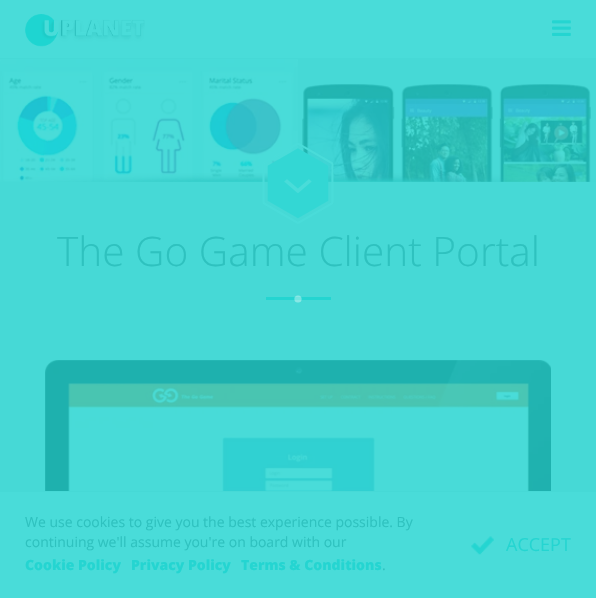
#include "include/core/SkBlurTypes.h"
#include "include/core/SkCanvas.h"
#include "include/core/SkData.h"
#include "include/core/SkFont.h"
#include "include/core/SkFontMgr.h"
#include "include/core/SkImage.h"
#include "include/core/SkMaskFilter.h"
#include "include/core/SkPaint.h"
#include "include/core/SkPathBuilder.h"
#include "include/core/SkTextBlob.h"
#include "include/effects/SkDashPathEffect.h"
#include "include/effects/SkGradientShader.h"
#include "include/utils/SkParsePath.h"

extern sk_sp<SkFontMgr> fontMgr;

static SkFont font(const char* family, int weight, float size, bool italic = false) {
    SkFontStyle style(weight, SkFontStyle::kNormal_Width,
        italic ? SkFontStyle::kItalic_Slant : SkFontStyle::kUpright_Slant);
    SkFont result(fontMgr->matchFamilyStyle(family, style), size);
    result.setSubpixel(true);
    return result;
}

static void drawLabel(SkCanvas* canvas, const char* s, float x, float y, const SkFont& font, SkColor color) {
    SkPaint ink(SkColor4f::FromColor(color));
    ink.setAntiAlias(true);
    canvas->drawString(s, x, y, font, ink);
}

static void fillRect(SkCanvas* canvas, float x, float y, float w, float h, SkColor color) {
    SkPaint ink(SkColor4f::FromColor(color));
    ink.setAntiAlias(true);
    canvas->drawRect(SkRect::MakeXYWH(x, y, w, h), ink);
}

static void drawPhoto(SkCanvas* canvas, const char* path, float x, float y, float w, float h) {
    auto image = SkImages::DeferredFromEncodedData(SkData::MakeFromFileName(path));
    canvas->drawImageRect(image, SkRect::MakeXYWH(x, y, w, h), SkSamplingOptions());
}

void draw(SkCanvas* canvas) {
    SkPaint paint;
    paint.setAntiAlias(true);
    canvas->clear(0xFF46D9D6);
    fillRect(canvas, 0, 0, 596, 58, 0xFF49DCD9);
    drawPhoto(canvas, "assets/img1.png", 25, 14, 120, 33);
    drawPhoto(canvas, "assets/img2.png", 552, 20, 19, 16);
    drawPhoto(canvas, "assets/img3.png", 0, 59, 298, 123);
    drawPhoto(canvas, "assets/img4.png", 302, 84, 289, 98);
    drawPhoto(canvas, "assets/img5.png", 0, 173, 596, 9);
    drawPhoto(canvas, "assets/img6.png", 262, 143, 72, 81);
    SkFont font1 = font("Open Sans", 300, 40.6f);
    drawLabel(canvas, "The Go Game Client Portal", 57, 266, font1, 0xFF2EC2BF);
    fillRect(canvas, 266, 297, 65, 3, 0xFF24D5D1);
    drawPhoto(canvas, "assets/img7.png", 45, 360, 506, 131);
    paint.setStroke(true);
    paint.setStrokeWidth(3.6f);
    paint.setColor(0x33FFFFFF);
    canvas->drawCircle(298, 299, 1.8f, paint);
    canvas->drawCircle(298, 299, 1.8f, paint);
    fillRect(canvas, 0, 492, 596, 106, 0xFF49DCD9);
    SkFont font2 = font("Open Sans", 400, 14);
    drawLabel(canvas, "We use cookies to give you the best experience possible. By", 25, 527, font2, 0xFF2EC2BF);
    drawLabel(canvas, "continuing we'll assume you're on board with our", 25, 547, font2, 0xFF2EC2BF);
    SkFont font3 = font("Open Sans", 800, 14);
    drawLabel(canvas, "Cookie Policy", 25, 570, font3, 0xFF24D5D1);
    drawLabel(canvas, "Privacy Policy", 131, 570, font3, 0xFF24D5D1);
    drawLabel(canvas, "Terms & Conditions", 241, 570, font3, 0xFF24D5D1);
    drawLabel(canvas, ".", 382, 570, font2, 0xFF2EC2BF);
    drawPhoto(canvas, "assets/img8.png", 471, 536, 23, 19);
    SkFont font4 = font("Open Sans", 400, 18);
    drawLabel(canvas, "ACCEPT", 506, 551, font4, 0xFF24D5D1);
}
